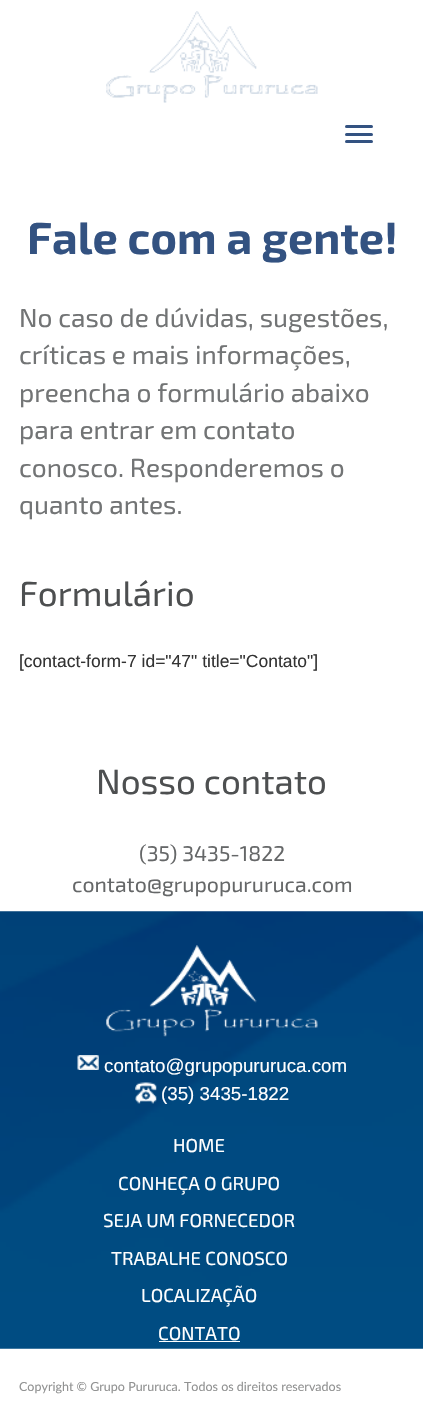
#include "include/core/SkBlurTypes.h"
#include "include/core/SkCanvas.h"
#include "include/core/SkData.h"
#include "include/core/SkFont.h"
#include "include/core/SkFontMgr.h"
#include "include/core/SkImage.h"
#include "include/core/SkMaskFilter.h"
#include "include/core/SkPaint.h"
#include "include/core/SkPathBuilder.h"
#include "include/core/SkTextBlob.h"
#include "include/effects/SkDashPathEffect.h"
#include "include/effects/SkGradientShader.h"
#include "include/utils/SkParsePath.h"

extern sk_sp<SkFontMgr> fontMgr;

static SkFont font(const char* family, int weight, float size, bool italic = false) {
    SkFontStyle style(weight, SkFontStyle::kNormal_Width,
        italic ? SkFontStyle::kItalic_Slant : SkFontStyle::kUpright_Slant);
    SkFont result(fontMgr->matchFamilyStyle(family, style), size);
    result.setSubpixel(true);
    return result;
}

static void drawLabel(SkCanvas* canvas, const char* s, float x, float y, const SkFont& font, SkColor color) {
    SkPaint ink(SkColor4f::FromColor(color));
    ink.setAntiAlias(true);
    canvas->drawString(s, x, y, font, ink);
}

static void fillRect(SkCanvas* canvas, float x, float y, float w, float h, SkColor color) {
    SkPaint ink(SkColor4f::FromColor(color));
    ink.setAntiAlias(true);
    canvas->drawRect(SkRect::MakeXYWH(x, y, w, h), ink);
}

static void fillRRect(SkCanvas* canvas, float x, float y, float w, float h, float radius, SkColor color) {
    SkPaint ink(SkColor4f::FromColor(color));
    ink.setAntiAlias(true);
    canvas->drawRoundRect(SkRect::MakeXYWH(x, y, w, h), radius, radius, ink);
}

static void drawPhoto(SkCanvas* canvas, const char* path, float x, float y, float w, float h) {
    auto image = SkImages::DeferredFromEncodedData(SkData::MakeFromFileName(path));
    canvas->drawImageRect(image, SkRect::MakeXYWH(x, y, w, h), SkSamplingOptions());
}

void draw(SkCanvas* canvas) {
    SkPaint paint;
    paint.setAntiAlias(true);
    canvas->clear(0xFFFFFFFF);
    drawPhoto(canvas, "assets/img1.png", 106, 11, 212, 92);
    fillRRect(canvas, 345, 125, 28, 3, 1.5f, 0xFF335281);
    fillRRect(canvas, 345, 133, 28, 3, 1.5f, 0xFF335281);
    fillRRect(canvas, 345, 140, 28, 3, 1.5f, 0xFF335281);
    SkFont font1 = font("Exo 2", 700, 45);
    drawLabel(canvas, "Fale com a gente!", 27, 254, font1, 0xFF335281);
    SkFont font2 = font("Exo 2", 400, 26.25f);
    drawLabel(canvas, "No caso de dúvidas, sugestões,", 19, 327, font2, 0xFF727475);
    drawLabel(canvas, "críticas e mais informações,", 19, 364, font2, 0xFF727475);
    drawLabel(canvas, "preencha o formulário abaixo", 19, 402, font2, 0xFF727475);
    drawLabel(canvas, "para entrar em contato", 19, 439, font2, 0xFF727475);
    drawLabel(canvas, "conosco. Responderemos o", 19, 477, font2, 0xFF727475);
    drawLabel(canvas, "quanto antes.", 19, 514, font2, 0xFF727475);
    SkFont font3 = font("Exo 2", 400, 35);
    drawLabel(canvas, "Formulário", 19, 606, font3, 0xFF4D4F50);
    SkFont font4 = font("Liberation Sans", 400, 17.5f);
    drawLabel(canvas, "[contact-form-7 id=\"47\" title=\"Contato\"]", 19, 667, font4, 0xFF333333);
    drawLabel(canvas, "Nosso contato", 96, 794, font3, 0xFF4D4F50);
    SkFont font5 = font("Exo 2", 400, 21.25f);
    drawLabel(canvas, "(35) 3435-1822", 139, 861, font5, 0xFF656768);
    drawLabel(canvas, "contato@grupopururuca.com", 72, 892, font5, 0xFF656768);
    drawPhoto(canvas, "assets/img2.png", 0, 911, 423, 438);
    drawPhoto(canvas, "assets/img3.png", 106, 945, 212, 92);
    drawPhoto(canvas, "assets/img4.png", 77, 1055, 22, 15);
    SkFont font6 = font("Liberation Sans", 400, 18.75f);
    drawLabel(canvas, "contato@grupopururuca.com", 104, 1072, font6, 0xFFFFFFFF);
    drawPhoto(canvas, "assets/img5.png", 135, 1082, 22, 22);
    drawLabel(canvas, "(35) 3435-1822", 161, 1100, font6, 0xFFFFFFFF);
    SkFont font7 = font("Exo 2", 400, 18.75f);
    drawLabel(canvas, "HOME", 173, 1152, font7, 0xFFFFFFFF);
    drawLabel(canvas, "CONHEÇA O GRUPO", 118, 1190, font7, 0xFFFFFFFF);
    drawLabel(canvas, "SEJA UM FORNECEDOR", 103, 1227, font7, 0xFFFFFFFF);
    drawLabel(canvas, "TRABALHE CONOSCO", 111, 1265, font7, 0xFFFFFFFF);
    drawLabel(canvas, "LOCALIZAÇÃO", 141, 1302, font7, 0xFFFFFFFF);
    drawLabel(canvas, "CONTATO", 158, 1340, font7, 0xFFFFFFFF);
    fillRect(canvas, 159, 1341, 81, 1, 0xFFFFFFFF);
    SkFont font8 = font("Lato", 400, 12.5f);
    drawLabel(canvas, "Copyright © Grupo Pururuca. Todos os direitos reservados", 19, 1391, font8, 0xFF919292);
}
